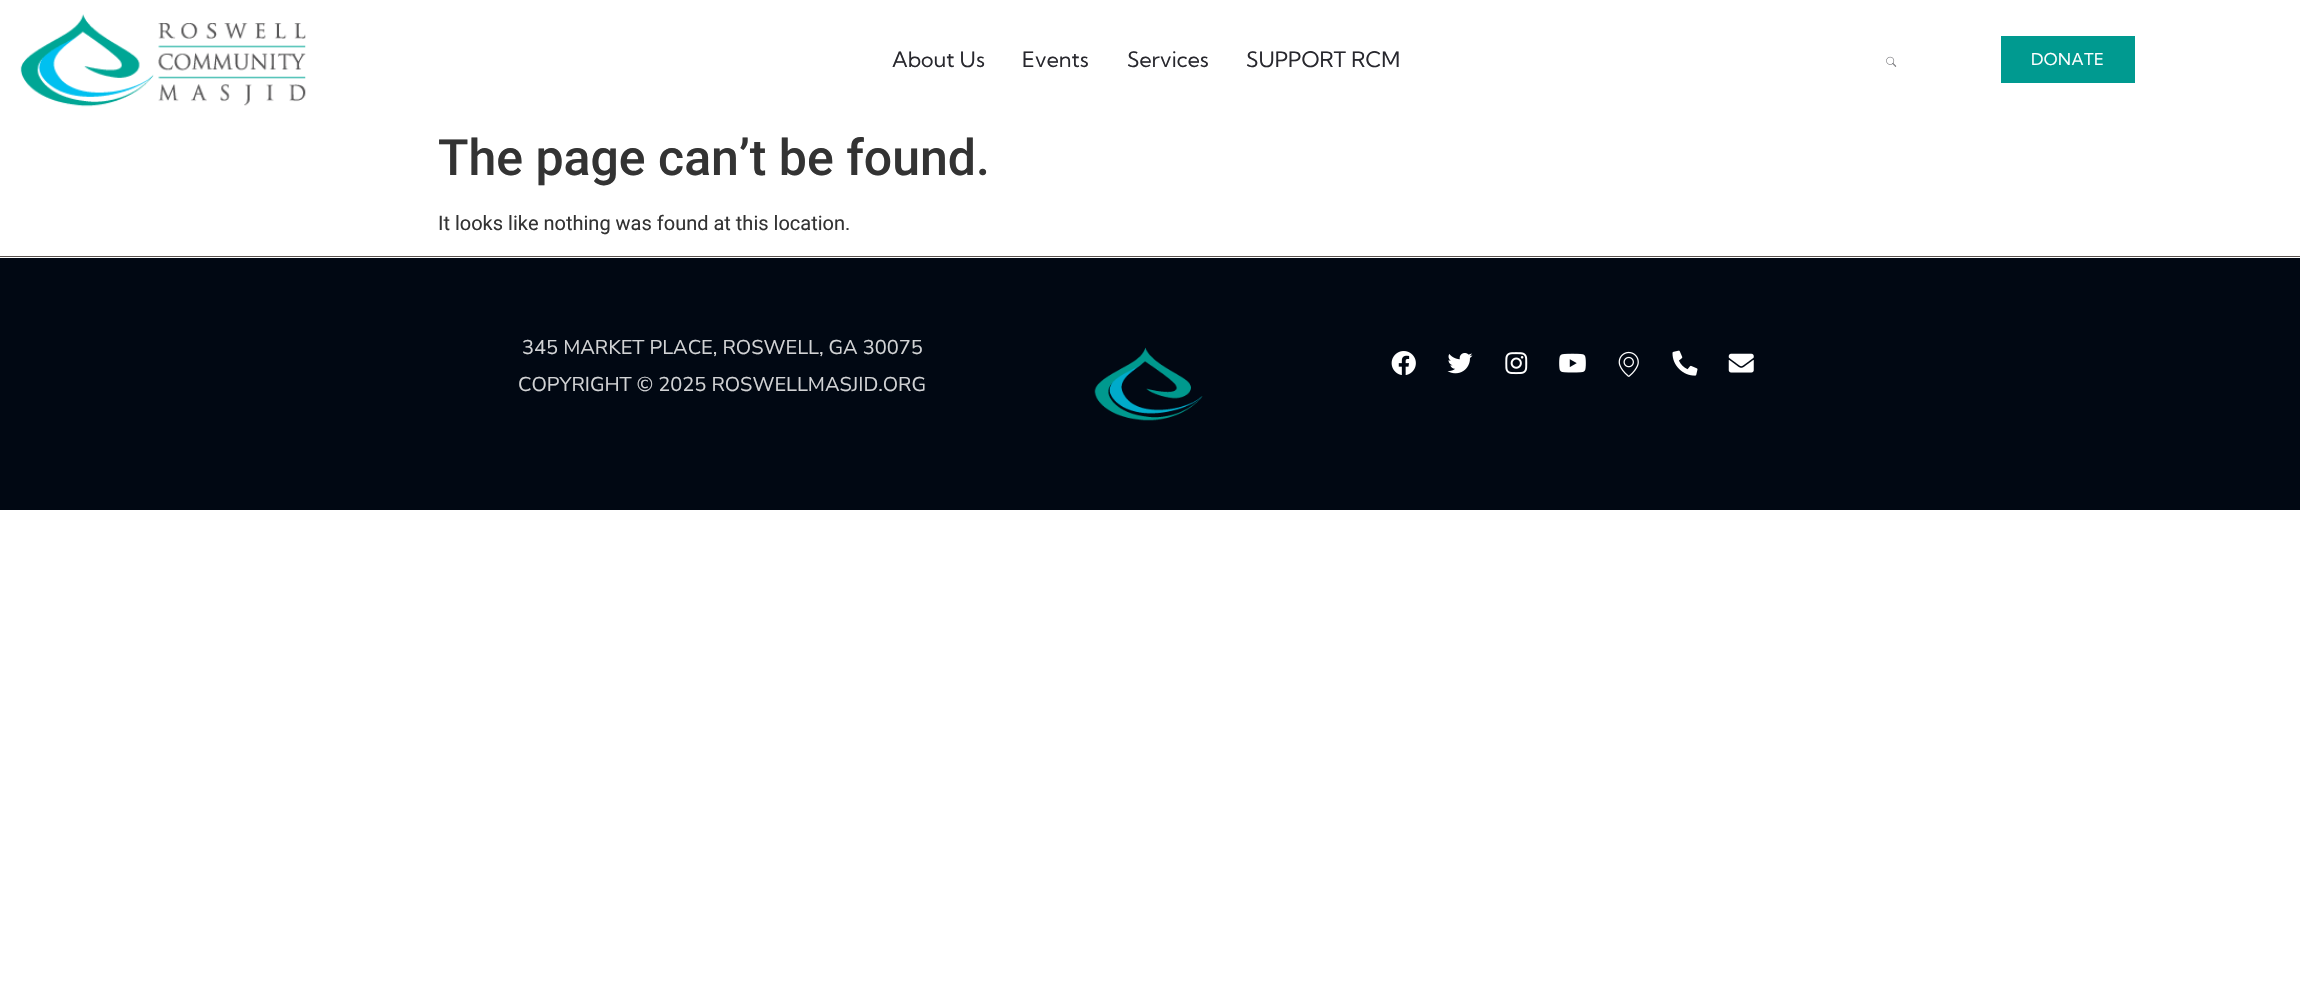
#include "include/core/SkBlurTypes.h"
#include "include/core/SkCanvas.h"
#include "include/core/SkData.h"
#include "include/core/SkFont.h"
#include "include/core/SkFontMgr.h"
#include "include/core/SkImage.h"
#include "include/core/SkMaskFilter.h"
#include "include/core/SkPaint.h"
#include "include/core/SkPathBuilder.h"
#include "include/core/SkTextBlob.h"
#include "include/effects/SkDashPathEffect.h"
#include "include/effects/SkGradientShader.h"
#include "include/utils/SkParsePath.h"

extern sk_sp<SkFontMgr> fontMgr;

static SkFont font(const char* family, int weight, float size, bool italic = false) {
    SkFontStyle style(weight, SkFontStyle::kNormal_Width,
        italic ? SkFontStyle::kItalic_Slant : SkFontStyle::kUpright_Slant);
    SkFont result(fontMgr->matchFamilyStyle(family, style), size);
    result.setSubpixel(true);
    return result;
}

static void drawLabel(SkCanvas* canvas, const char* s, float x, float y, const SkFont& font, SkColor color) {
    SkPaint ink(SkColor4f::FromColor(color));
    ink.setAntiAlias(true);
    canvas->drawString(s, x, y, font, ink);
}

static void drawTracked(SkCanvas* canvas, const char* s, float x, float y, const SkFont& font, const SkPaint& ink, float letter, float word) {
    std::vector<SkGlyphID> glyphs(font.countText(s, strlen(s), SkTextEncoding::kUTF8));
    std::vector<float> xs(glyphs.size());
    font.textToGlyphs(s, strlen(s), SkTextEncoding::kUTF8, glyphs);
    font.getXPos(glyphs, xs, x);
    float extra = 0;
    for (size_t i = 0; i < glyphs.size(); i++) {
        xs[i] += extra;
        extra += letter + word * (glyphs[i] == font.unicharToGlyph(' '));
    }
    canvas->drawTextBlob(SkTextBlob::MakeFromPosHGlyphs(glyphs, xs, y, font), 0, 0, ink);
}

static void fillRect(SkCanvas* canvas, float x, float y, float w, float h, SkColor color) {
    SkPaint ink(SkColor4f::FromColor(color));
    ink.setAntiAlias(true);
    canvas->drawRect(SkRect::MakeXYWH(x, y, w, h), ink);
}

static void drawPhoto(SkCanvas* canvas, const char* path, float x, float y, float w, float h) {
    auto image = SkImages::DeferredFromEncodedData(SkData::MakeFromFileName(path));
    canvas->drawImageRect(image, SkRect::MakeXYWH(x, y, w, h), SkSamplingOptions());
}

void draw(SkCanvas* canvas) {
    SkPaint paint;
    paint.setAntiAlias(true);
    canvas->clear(0xFFFFFFFF);
    drawPhoto(canvas, "assets/img1.png", 20, 14, 286, 93);
    SkFont font1 = font("Kumbh Sans", 400, 21.25f);
    drawLabel(canvas, "About Us", 892, 67, font1, 0xFF28282E);
    drawLabel(canvas, "Events", 1022, 67, font1, 0xFF28282E);
    drawLabel(canvas, "Services", 1127, 67, font1, 0xFF28282E);
    drawLabel(canvas, "SUPPORT RCM", 1246, 67, font1, 0xFF28282E);
    drawPhoto(canvas, "assets/img2.png", 1886, 56, 11, 11);
    fillRect(canvas, 2001, 36, 134, 47, 0xFF009A90);
    SkFont font2 = font("Kumbh Sans", 400, 16.25f);
    paint.setColor(0xFFFFFFFF);
    drawTracked(canvas, "DONATE", 2031, 65, font2, paint, 0.5f, 0);
    SkFont font3 = font("Roboto", 500, 50);
    drawLabel(canvas, "The page can’t be found.", 438, 175, font3, 0xFF333333);
    SkFont font4 = font("Roboto", 400, 20);
    drawLabel(canvas, "It looks like nothing was found at this location.", 438, 230, font4, 0xFF333333);
    fillRect(canvas, 0, 258, 2300, 252, 0xFF010813);
    fillRect(canvas, 0, 256, 2300, 1, 0xFF5A524E);
    SkFont font5 = font("Nunito Sans", 400, 20);
    drawLabel(canvas, "345 MARKET PLACE, ROSWELL, GA 30075", 522, 354, font5, 0xFFD2D3D5);
    drawLabel(canvas, "COPYRIGHT © 2025 ROSWELLMASJID.ORG", 518, 391, font5, 0xFFD2D3D5);
    drawPhoto(canvas, "assets/img3.png", 1094, 347, 109, 74);
    drawPhoto(canvas, "assets/img4.png", 1391, 351, 25, 24);
    drawPhoto(canvas, "assets/img5.png", 1447, 353, 26, 21);
    drawPhoto(canvas, "assets/img6.png", 1505, 352, 23, 23);
    drawPhoto(canvas, "assets/img7.png", 1559, 353, 27, 20);
    drawPhoto(canvas, "assets/img8.png", 1618, 351, 21, 26);
    drawPhoto(canvas, "assets/img9.png", 1672, 350, 26, 26);
    drawPhoto(canvas, "assets/img10.png", 1728, 353, 26, 20);
}
